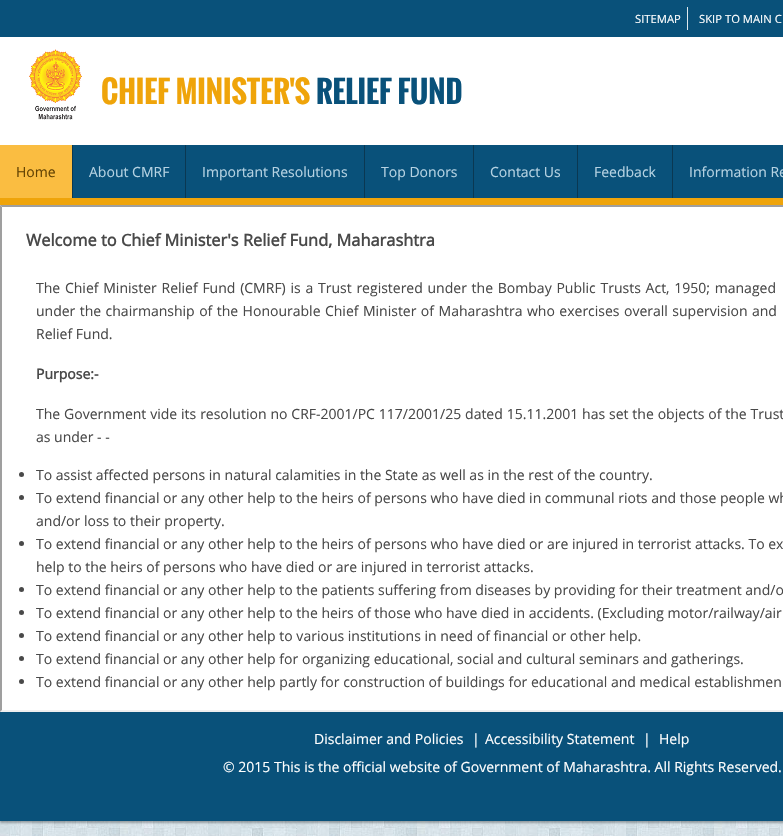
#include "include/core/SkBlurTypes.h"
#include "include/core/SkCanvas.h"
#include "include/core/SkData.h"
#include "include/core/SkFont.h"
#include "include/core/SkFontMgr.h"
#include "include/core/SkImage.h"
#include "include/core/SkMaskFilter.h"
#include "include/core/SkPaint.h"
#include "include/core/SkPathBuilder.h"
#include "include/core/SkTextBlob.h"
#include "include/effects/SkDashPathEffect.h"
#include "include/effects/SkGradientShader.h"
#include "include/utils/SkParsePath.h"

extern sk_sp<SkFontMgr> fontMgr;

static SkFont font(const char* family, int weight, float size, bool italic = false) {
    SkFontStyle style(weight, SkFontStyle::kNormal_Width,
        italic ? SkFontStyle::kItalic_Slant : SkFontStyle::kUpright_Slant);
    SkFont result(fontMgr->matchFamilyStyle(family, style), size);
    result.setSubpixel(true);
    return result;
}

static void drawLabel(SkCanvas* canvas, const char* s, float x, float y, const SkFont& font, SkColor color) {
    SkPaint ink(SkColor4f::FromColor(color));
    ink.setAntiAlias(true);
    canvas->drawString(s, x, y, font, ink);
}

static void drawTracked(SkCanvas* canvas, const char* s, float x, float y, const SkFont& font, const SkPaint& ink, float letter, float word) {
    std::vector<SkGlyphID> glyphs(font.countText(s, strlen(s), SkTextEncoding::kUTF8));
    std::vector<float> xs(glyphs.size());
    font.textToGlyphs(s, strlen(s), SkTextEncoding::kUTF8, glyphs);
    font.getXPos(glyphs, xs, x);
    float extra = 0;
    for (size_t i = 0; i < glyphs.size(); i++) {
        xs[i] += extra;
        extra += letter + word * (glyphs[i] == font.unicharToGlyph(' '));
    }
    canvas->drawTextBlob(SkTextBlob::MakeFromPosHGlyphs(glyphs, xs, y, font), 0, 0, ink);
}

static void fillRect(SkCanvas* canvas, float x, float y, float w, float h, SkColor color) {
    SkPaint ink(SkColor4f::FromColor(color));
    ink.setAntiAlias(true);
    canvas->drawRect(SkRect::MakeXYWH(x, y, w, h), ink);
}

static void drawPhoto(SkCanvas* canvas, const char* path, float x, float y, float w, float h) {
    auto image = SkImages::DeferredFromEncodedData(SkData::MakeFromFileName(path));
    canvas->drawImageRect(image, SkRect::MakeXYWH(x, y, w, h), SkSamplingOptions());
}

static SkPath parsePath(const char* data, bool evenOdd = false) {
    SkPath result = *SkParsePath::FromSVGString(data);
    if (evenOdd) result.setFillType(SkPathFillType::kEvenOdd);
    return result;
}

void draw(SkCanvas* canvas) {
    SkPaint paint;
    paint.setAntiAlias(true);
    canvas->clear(0xFFFFFFFF);
    drawPhoto(canvas, "assets/img1.png", 0, 821, 783, 15);
    fillRect(canvas, 0, 0, 783, 37, 0xFF09517A);
    fillRect(canvas, 687, 7, 1, 23, 0xFFDEE8ED);
    SkFont font1 = font("Open Sans", 400, 11.25f);
    drawLabel(canvas, "SITEMAP", 635, 23, font1, 0xFFFFFFFF);
    drawLabel(canvas, "SKIP TO MAIN C", 699, 23, font1, 0xFFFFFFFF);
    drawPhoto(canvas, "assets/img2.png", 29, 49, 53, 71);
    SkFont font2 = font("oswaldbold", 700, 30);
    drawLabel(canvas, "CHIEF MINISTER'S", 101, 104, font2, 0xFFEFA40A);
    drawLabel(canvas, "RELIEF FUND", 316, 104, font2, 0xFF09517A);
    fillRect(canvas, 73, 145, 710, 53, 0xFF09517A);
    fillRect(canvas, 0, 198, 783, 7, 0xFFEFA40A);
    fillRect(canvas, 72, 145, 1, 53, 0xFF0A3852);
    fillRect(canvas, 0, 145, 72, 53, 0xFFFABD41);
    SkFont font3 = font("Open Sans", 400, 14);
    drawLabel(canvas, "Home", 16, 177, font3, 0xFF634302);
    fillRect(canvas, 185, 145, 1, 53, 0xFF0A3852);
    drawLabel(canvas, "About CMRF", 89, 177, font3, 0xFFB5D2E2);
    fillRect(canvas, 364, 145, 1, 53, 0xFF0A3852);
    drawLabel(canvas, "Important Resolutions", 202, 177, font3, 0xFFB5D2E2);
    fillRect(canvas, 473, 145, 1, 53, 0xFF0A3852);
    drawLabel(canvas, "Top Donors", 381, 177, font3, 0xFFB5D2E2);
    fillRect(canvas, 577, 145, 1, 53, 0xFF0A3852);
    drawLabel(canvas, "Contact Us", 490, 177, font3, 0xFFB5D2E2);
    fillRect(canvas, 672, 145, 1, 53, 0xFF0A3852);
    drawLabel(canvas, "Feedback", 594, 177, font3, 0xFFB5D2E2);
    drawLabel(canvas, "Information Re", 689, 177, font3, 0xFFB5D2E2);
    paint.setColor(0xFF9F9F9F);
    canvas->drawPath(parsePath("M0 205H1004L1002 207H2Z"), paint);
    paint.setColor(0xFFEFEFEF);
    canvas->drawPath(parsePath("M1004 712H0L2 710H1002Z"), paint);
    paint.setColor(0xFF9F9F9F);
    canvas->drawPath(parsePath("M0 712V205L2 207V710Z"), paint);
    SkFont font4 = font("Open Sans", 700, 16.4f);
    drawLabel(canvas, "Welcome to Chief Minister's Relief Fund, Maharashtra", 26, 246, font4, 0xFF494949);
    paint.setColor(0xFF494949);
    drawTracked(canvas, "The Chief Minister Relief Fund (CMRF) is a Trust registered under the Bombay Public Trusts Act, 1950; managed", 36, 293, font3, paint, 0, 1.1f);
    drawTracked(canvas, "under the chairmanship of the Honourable Chief Minister of Maharashtra who exercises overall supervision and", 36, 316, font3, paint, 0, 0.8f);
    drawLabel(canvas, "Relief Fund.", 36, 339, font3, 0xFF494949);
    SkFont font5 = font("Open Sans", 700, 14);
    drawLabel(canvas, "Purpose:-", 36, 379, font5, 0xFF494949);
    drawTracked(canvas, "The Government vide its resolution no CRF-2001/PC 117/2001/25 dated 15.11.2001 has set the objects of the Trust", 36, 419, font3, paint, 0, 0.25f);
    drawLabel(canvas, "as under - -", 36, 442, font3, 0xFF494949);
    canvas->drawCircle(21.5f, 474.5f, 2.5f, paint);
    drawLabel(canvas, "To assist affected persons in natural calamities in the State as well as in the rest of the country.", 36, 480, font3, 0xFF494949);
    canvas->drawCircle(21.5f, 497.5f, 2.5f, paint);
    drawLabel(canvas, "To extend financial or any other help to the heirs of persons who have died in communal riots and those people wh", 36, 503, font3, 0xFF494949);
    drawLabel(canvas, "and/or loss to their property.", 36, 526, font3, 0xFF494949);
    canvas->drawCircle(21.5f, 543.5f, 2.5f, paint);
    drawLabel(canvas, "To extend financial or any other help to the heirs of persons who have died or are injured in terrorist attacks. To ex", 36, 549, font3, 0xFF494949);
    drawLabel(canvas, "help to the heirs of persons who have died or are injured in terrorist attacks.", 36, 572, font3, 0xFF494949);
    canvas->drawCircle(21.5f, 589.5f, 2.5f, paint);
    drawLabel(canvas, "To extend financial or any other help to the patients suffering from diseases by providing for their treatment and/o", 36, 595, font3, 0xFF494949);
    canvas->drawCircle(21.5f, 612.5f, 2.5f, paint);
    drawLabel(canvas, "To extend financial or any other help to the heirs of those who have died in accidents. (Excluding motor/railway/air", 36, 618, font3, 0xFF494949);
    canvas->drawCircle(21.5f, 635.5f, 2.5f, paint);
    drawLabel(canvas, "To extend financial or any other help to various institutions in need of financial or other help.", 36, 641, font3, 0xFF494949);
    canvas->drawCircle(21.5f, 658.5f, 2.5f, paint);
    drawLabel(canvas, "To extend financial or any other help for organizing educational, social and cultural seminars and gatherings.", 36, 664, font3, 0xFF494949);
    canvas->drawCircle(21.5f, 681.5f, 2.5f, paint);
    drawLabel(canvas, "To extend financial or any other help partly for construction of buildings for educational and medical establishmen", 36, 687, font3, 0xFF494949);
    paint.setColor(0x4D000000);
    paint.setMaskFilter(SkMaskFilter::MakeBlur(kNormal_SkBlurStyle, 1));
    canvas->drawRect(SkRect::MakeXYWH(0, 714, 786, 109), paint);
    paint.setMaskFilter(nullptr);
    fillRect(canvas, 0, 712, 783, 109, 0xFF09517A);
    drawLabel(canvas, "Disclaimer and Policies", 314, 744, font3, 0xFFFFFFFF);
    drawLabel(canvas, "|", 472, 744, font3, 0xFFFFFFFF);
    drawLabel(canvas, "Accessibility Statement", 485, 744, font3, 0xFFFFFFFF);
    drawLabel(canvas, "|", 643, 744, font3, 0xFFFFFFFF);
    drawLabel(canvas, "Help", 659, 744, font3, 0xFFFFFFFF);
    drawLabel(canvas, "© 2015 This is the official website of Government of Maharashtra. All Rights Reserved.", 223, 772, font3, 0xFFFFFFFF);
}
